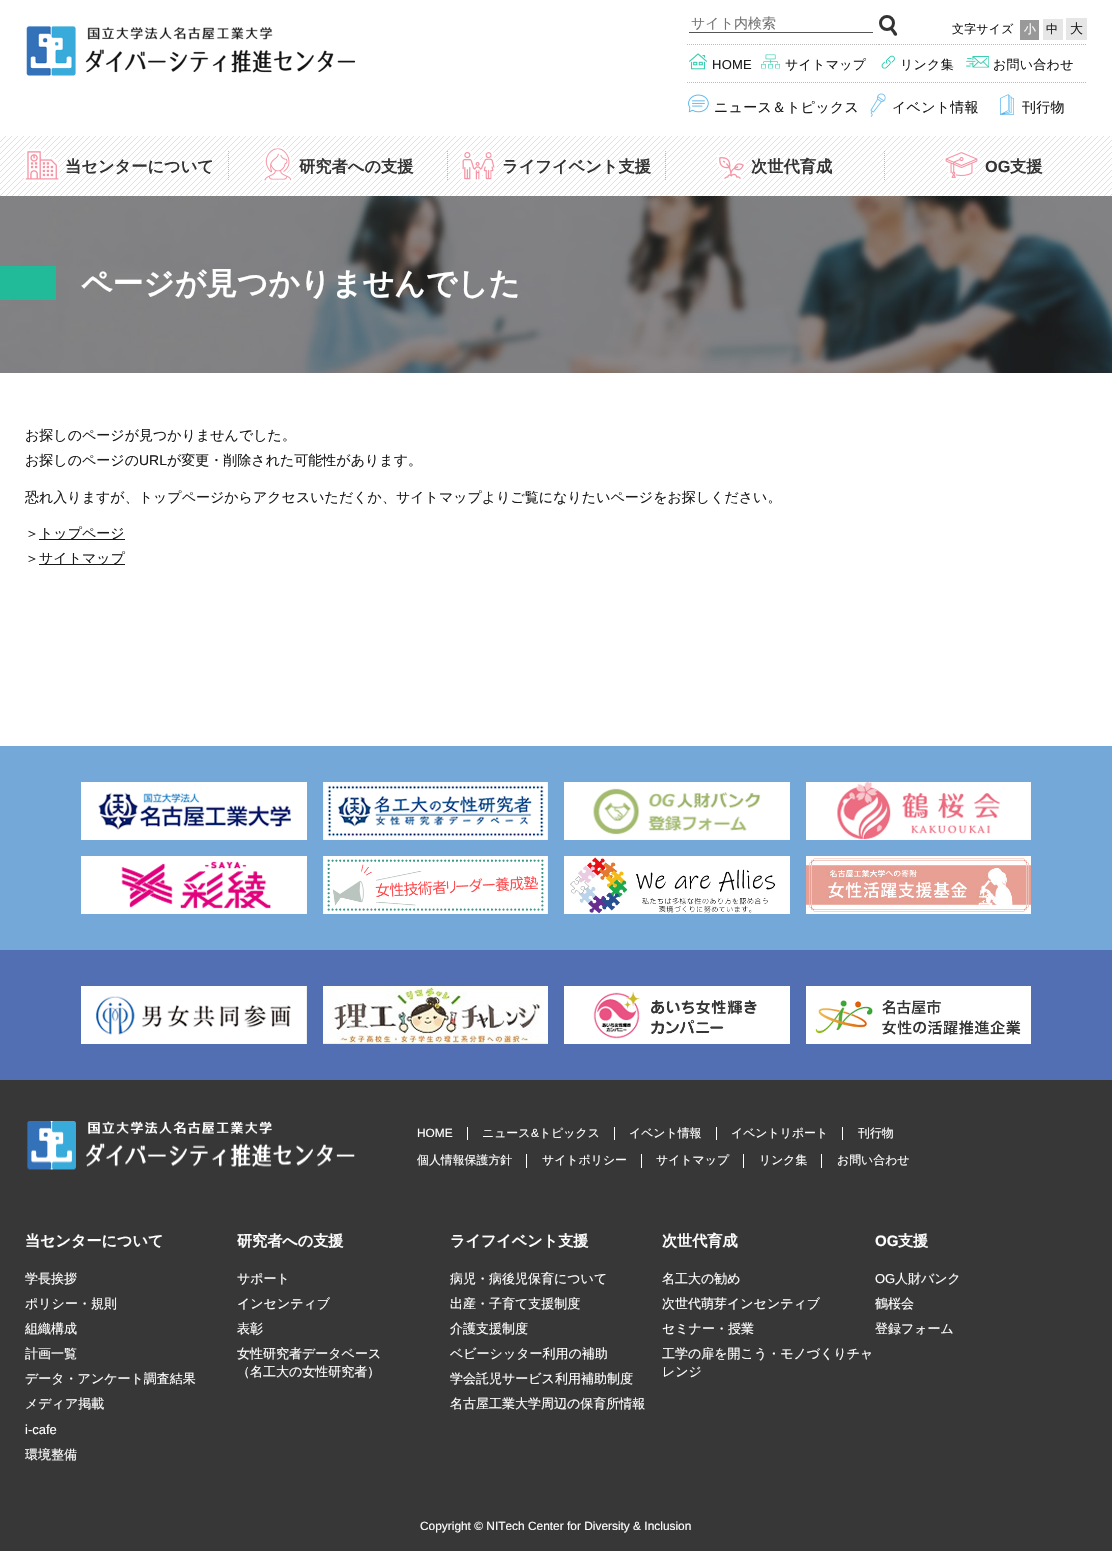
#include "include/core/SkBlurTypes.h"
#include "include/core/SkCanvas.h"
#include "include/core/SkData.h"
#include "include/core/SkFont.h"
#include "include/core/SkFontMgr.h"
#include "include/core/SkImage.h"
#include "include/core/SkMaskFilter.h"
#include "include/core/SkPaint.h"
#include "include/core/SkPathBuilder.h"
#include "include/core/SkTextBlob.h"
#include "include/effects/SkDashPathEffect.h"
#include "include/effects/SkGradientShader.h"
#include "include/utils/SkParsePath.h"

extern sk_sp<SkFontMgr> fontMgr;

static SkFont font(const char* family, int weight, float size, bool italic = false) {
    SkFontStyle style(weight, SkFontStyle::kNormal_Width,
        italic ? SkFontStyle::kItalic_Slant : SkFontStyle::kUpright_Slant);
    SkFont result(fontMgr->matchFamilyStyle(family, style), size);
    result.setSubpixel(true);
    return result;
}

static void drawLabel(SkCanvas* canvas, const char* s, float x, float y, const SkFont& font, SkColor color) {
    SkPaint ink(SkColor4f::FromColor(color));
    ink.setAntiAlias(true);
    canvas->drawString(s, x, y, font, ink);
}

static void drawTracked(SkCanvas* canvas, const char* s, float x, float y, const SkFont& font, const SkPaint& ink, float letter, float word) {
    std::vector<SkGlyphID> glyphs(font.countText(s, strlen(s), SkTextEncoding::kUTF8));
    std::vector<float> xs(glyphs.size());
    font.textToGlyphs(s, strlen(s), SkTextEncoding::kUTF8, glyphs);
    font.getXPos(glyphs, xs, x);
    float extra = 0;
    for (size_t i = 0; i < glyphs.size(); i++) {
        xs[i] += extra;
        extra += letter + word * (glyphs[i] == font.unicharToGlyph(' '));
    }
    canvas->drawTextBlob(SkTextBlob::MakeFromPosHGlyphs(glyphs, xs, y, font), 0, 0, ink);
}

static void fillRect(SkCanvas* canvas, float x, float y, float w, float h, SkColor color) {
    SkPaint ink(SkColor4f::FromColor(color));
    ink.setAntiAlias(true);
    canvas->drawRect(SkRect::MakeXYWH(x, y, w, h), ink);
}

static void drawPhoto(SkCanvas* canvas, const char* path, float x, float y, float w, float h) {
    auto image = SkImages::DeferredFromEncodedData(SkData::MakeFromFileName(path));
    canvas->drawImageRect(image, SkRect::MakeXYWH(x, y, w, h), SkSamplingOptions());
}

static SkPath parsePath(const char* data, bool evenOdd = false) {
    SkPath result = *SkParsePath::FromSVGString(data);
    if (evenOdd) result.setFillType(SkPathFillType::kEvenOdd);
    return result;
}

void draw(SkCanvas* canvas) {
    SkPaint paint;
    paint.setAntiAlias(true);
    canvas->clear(0xFFFFFFFF);
    fillRect(canvas, 689, 32, 184, 1, 0xFF555555);
    SkFont font1 = font("WenQuanYi Zen Hei", 500, 14);
    drawLabel(canvas, "サイト内検索", 691, 28, font1, 0xFF757575);
    paint.setStroke(true);
    paint.setStrokeWidth(3);
    paint.setColor(0xFF333333);
    canvas->drawCircle(887, 23, 6.5f, paint);
    paint.setStroke(false);
    canvas->drawPath(parsePath("M890.5 27.5C892.5 26 894 29.5 895 30.5C895.5 31.5 898.5 34 896.5 35.5C894.5 37 893 33.5 892.5 32.5C891.5 31 889 28.5 890.5 27.5Z"), paint);
    SkFont font2 = font("WenQuanYi Zen Hei", 500, 11.9f);
    paint.setColor(0xFF1A1A1A);
    drawTracked(canvas, "文字サイズ", 952, 33, font2, paint, 0.25f, 0);
    fillRect(canvas, 1020, 20, 19, 20, 0xFF999999);
    paint.setColor(0xFFFFFFFF);
    drawTracked(canvas, "小", 1024, 33, font2, paint, 0.25f, 0);
    fillRect(canvas, 1043, 19, 20, 21, 0xFFE6E6E6);
    SkFont font3 = font("WenQuanYi Zen Hei", 500, 12);
    paint.setColor(0xFF1A1A1A);
    drawTracked(canvas, "中", 1046, 33, font3, paint, 0.25f, 0);
    fillRect(canvas, 1066, 18, 21, 22, 0xFFE6E6E6);
    SkFont font4 = font("WenQuanYi Zen Hei", 500, 13);
    drawTracked(canvas, "大", 1070, 33, font4, paint, 0.25f, 0);
    paint.setStroke(true);
    paint.setStrokeWidth(1);
    paint.setColor(0xFFBBBBBB);
    paint.setPathEffect(SkDashPathEffect::Make({{1, 1}}, 0));
    canvas->drawPath(parsePath("M687 44.5H760"), paint);
    paint.setPathEffect(nullptr);
    drawPhoto(canvas, "assets/img1.png", 689, 53, 18, 17);
    SkFont font5 = font("Liberation Sans", 400, 13);
    paint.setStroke(false);
    paint.setColor(0xFF1A1A1A);
    drawTracked(canvas, "HOME", 712, 69, font5, paint, 0.25f, 0);
    paint.setStroke(true);
    paint.setColor(0xFFBBBBBB);
    paint.setPathEffect(SkDashPathEffect::Make({{1, 1}}, 0));
    canvas->drawPath(parsePath("M760 44.5H879"), paint);
    paint.setPathEffect(nullptr);
    drawPhoto(canvas, "assets/img2.png", 761, 54, 19, 15);
    paint.setStroke(false);
    paint.setColor(0xFF1A1A1A);
    drawTracked(canvas, "サイトマップ", 785, 69, font4, paint, 0.25f, 0);
    paint.setStroke(true);
    paint.setColor(0xFFBBBBBB);
    paint.setPathEffect(SkDashPathEffect::Make({{1, 1}}, 0));
    canvas->drawPath(parsePath("M879 44.5H963"), paint);
    paint.setPathEffect(nullptr);
    drawPhoto(canvas, "assets/img3.png", 881, 55, 14, 14);
    paint.setStroke(false);
    paint.setColor(0xFF1A1A1A);
    drawTracked(canvas, "リンク集", 900, 69, font4, paint, 0.25f, 0);
    paint.setStroke(true);
    paint.setColor(0xFFBBBBBB);
    paint.setPathEffect(SkDashPathEffect::Make({{1, 1}}, 0));
    canvas->drawPath(parsePath("M963 44.5H1087"), paint);
    paint.setPathEffect(nullptr);
    drawPhoto(canvas, "assets/img4.png", 966, 56, 23, 12);
    paint.setStroke(false);
    paint.setColor(0xFF1A1A1A);
    drawTracked(canvas, "お問い合わせ", 993, 69, font4, paint, 0.25f, 0);
    paint.setStroke(true);
    paint.setColor(0xFFBBBBBB);
    paint.setPathEffect(SkDashPathEffect::Make({{1, 1}}, 0));
    canvas->drawPath(parsePath("M687 82.5H867"), paint);
    paint.setPathEffect(nullptr);
    drawPhoto(canvas, "assets/img5.png", 688, 94, 21, 19);
    paint.setStroke(false);
    paint.setColor(0xFF1A1A1A);
    drawTracked(canvas, "ニュース＆トピックス", 714, 112, font1, paint, 0.25f, 0);
    paint.setStroke(true);
    paint.setColor(0xFFBBBBBB);
    paint.setPathEffect(SkDashPathEffect::Make({{1, 1}}, 0));
    canvas->drawPath(parsePath("M867 82.5H995"), paint);
    paint.setPathEffect(nullptr);
    drawPhoto(canvas, "assets/img6.png", 870, 93, 16, 24);
    paint.setStroke(false);
    paint.setColor(0xFF1A1A1A);
    drawTracked(canvas, "イベント情報", 892, 112, font1, paint, 0.25f, 0);
    paint.setStroke(true);
    paint.setColor(0xFFBBBBBB);
    paint.setPathEffect(SkDashPathEffect::Make({{1, 1}}, 0));
    canvas->drawPath(parsePath("M995 82.5H1087"), paint);
    paint.setPathEffect(nullptr);
    drawPhoto(canvas, "assets/img7.png", 1000, 94, 14, 21);
    paint.setStroke(false);
    paint.setColor(0xFF1A1A1A);
    drawTracked(canvas, "刊行物", 1022, 112, font1, paint, 0.25f, 0);
    drawPhoto(canvas, "assets/img14.png", 0, 136, 1112, 60);
    drawPhoto(canvas, "assets/img8.png", 24, 148, 37, 34);
    SkFont font6 = font("WenQuanYi Zen Hei", 700, 16.25f);
    drawLabel(canvas, "当センターについて", 65, 172, font6, 0xFF333333);
    paint.setStroke(true);
    paint.setColor(0xFFBBBBBB);
    paint.setPathEffect(SkDashPathEffect::Make({{1, 1}}, 0));
    canvas->drawPath(parsePath("M228.5 151V181"), paint);
    paint.setPathEffect(nullptr);
    drawPhoto(canvas, "assets/img9.png", 262, 147, 32, 35);
    drawLabel(canvas, "研究者への支援", 299, 172, font6, 0xFF333333);
    paint.setPathEffect(SkDashPathEffect::Make({{1, 1}}, 0));
    canvas->drawPath(parsePath("M447.5 151V181"), paint);
    paint.setPathEffect(nullptr);
    drawPhoto(canvas, "assets/img10.png", 460, 149, 37, 33);
    drawLabel(canvas, "ライフイベント支援", 502, 172, font6, 0xFF333333);
    paint.setPathEffect(SkDashPathEffect::Make({{1, 1}}, 0));
    canvas->drawPath(parsePath("M665.5 151V181"), paint);
    paint.setPathEffect(nullptr);
    drawPhoto(canvas, "assets/img11.png", 717, 154, 29, 28);
    drawLabel(canvas, "次世代育成", 751, 172, font6, 0xFF333333);
    paint.setPathEffect(SkDashPathEffect::Make({{1, 1}}, 0));
    canvas->drawPath(parsePath("M884.5 151V181"), paint);
    paint.setPathEffect(nullptr);
    drawPhoto(canvas, "assets/img12.png", 943, 150, 37, 31);
    SkFont font7 = font("Liberation Sans", 700, 16.25f);
    drawLabel(canvas, "OG", 985, 172, font7, 0xFF333333);
    drawLabel(canvas, "支援", 1010, 172, font6, 0xFF333333);
    drawPhoto(canvas, "assets/img13.png", 26, 26, 329, 50);
    drawPhoto(canvas, "assets/img15.png", 0, 196, 1112, 177);
    fillRect(canvas, 0, 266, 56, 34, 0xFF22BB99);
    SkFont font8 = font("WenQuanYi Zen Hei", 700, 30.75f);
    drawLabel(canvas, "ページが見つかりませんでした", 81, 294, font8, 0xFFFFFFFF);
    drawLabel(canvas, "お探しのページが見つかりませんでした。", 25, 440, font1, 0xFF1A1A1A);
    drawLabel(canvas, "お探しのページの", 25, 465, font1, 0xFF1A1A1A);
    SkFont font9 = font("Liberation Sans", 400, 14);
    drawLabel(canvas, "URL", 139, 465, font9, 0xFF1A1A1A);
    drawLabel(canvas, "が変更・削除された可能性があります。", 167, 465, font1, 0xFF1A1A1A);
    drawLabel(canvas, "恐れ入りますが、トップページからアクセスいただくか、サイトマップよりご覧になりたいページをお探しください。", 25, 502, font1, 0xFF1A1A1A);
    drawLabel(canvas, "＞", 25, 538, font1, 0xFF1A1A1A);
    fillRect(canvas, 39, 539, 86, 1, 0xFF1A1A1A);
    drawLabel(canvas, "トップページ", 39, 538, font1, 0xFF1A1A1A);
    drawLabel(canvas, "＞", 25, 563, font1, 0xFF1A1A1A);
    fillRect(canvas, 39, 564, 86, 1, 0xFF1A1A1A);
    drawLabel(canvas, "サイトマップ", 39, 563, font1, 0xFF1A1A1A);
    fillRect(canvas, 0, 1080, 1112, 471, 0xFF373737);
    fillRect(canvas, 0, 746, 1112, 204, 0xFF74A8D9);
    fillRect(canvas, 81, 782, 226, 58, 0xFFFFFFFF);
    drawPhoto(canvas, "assets/img16.png", 81, 783, 210, 56);
    drawPhoto(canvas, "assets/img17.png", 323, 782, 225, 58);
    fillRect(canvas, 564, 782, 226, 58, 0xFFFFFFFF);
    drawPhoto(canvas, "assets/img18.png", 593, 788, 197, 52);
    fillRect(canvas, 806, 782, 31, 58, 0xFFFFFFFF);
    drawPhoto(canvas, "assets/img19.png", 837, 782, 194, 58);
    fillRect(canvas, 81, 856, 226, 58, 0xFFFFFFFF);
    drawPhoto(canvas, "assets/img20.png", 121, 861, 186, 53);
    fillRect(canvas, 323, 856, 225, 58, 0xFFFFFFFF);
    drawPhoto(canvas, "assets/img21.png", 323, 856, 225, 58);
    fillRect(canvas, 564, 856, 226, 58, 0xFFFFFFFF);
    drawPhoto(canvas, "assets/img22.png", 570, 857, 205, 57);
    fillRect(canvas, 806, 913, 225, 1, 0xFFFFFFFF);
    drawPhoto(canvas, "assets/img23.png", 806, 856, 225, 57);
    fillRect(canvas, 0, 950, 1112, 130, 0xFF536FB4);
    fillRect(canvas, 81, 986, 15, 58, 0xFFFFFFFF);
    drawPhoto(canvas, "assets/img24.png", 96, 986, 211, 58);
    drawPhoto(canvas, "assets/img25.png", 323, 986, 225, 58);
    fillRect(canvas, 564, 986, 226, 58, 0xFFFFFFFF);
    drawPhoto(canvas, "assets/img26.png", 593, 991, 164, 48);
    fillRect(canvas, 806, 986, 225, 58, 0xFFFFFFFF);
    drawPhoto(canvas, "assets/img27.png", 815, 1000, 206, 35);
    drawPhoto(canvas, "assets/img28.png", 27, 1121, 328, 49);
    SkFont font10 = font("Liberation Sans", 400, 11.9f);
    drawLabel(canvas, "HOME", 417, 1137, font10, 0xFFFFFFFF);
    fillRect(canvas, 467, 1127, 1, 13, 0xFFFFFFFF);
    drawLabel(canvas, "ニュース", 482, 1137, font2, 0xFFFFFFFF);
    drawLabel(canvas, "&", 531, 1137, font10, 0xFFFFFFFF);
    drawLabel(canvas, "トピックス", 539, 1137, font2, 0xFFFFFFFF);
    fillRect(canvas, 614, 1127, 1, 13, 0xFFFFFFFF);
    drawLabel(canvas, "イベント情報", 629, 1137, font2, 0xFFFFFFFF);
    fillRect(canvas, 716, 1127, 1, 13, 0xFFFFFFFF);
    drawLabel(canvas, "イベントリポート", 731, 1137, font2, 0xFFFFFFFF);
    fillRect(canvas, 842, 1127, 1, 13, 0xFFFFFFFF);
    drawLabel(canvas, "刊行物", 858, 1137, font2, 0xFFFFFFFF);
    drawLabel(canvas, "個人情報保護方針", 417, 1164, font2, 0xFFFFFFFF);
    fillRect(canvas, 526, 1154, 1, 14, 0xFFFFFFFF);
    drawLabel(canvas, "サイトポリシー", 542, 1164, font2, 0xFFFFFFFF);
    fillRect(canvas, 641, 1154, 1, 14, 0xFFFFFFFF);
    drawLabel(canvas, "サイトマップ", 656, 1164, font2, 0xFFFFFFFF);
    fillRect(canvas, 743, 1154, 1, 14, 0xFFFFFFFF);
    drawLabel(canvas, "リンク集", 759, 1164, font2, 0xFFFFFFFF);
    fillRect(canvas, 821, 1154, 1, 14, 0xFFFFFFFF);
    drawLabel(canvas, "お問い合わせ", 837, 1164, font2, 0xFFFFFFFF);
    SkFont font11 = font("WenQuanYi Zen Hei", 700, 15.1f);
    drawLabel(canvas, "当センターについて", 25, 1246, font11, 0xFFFFFFFF);
    drawLabel(canvas, "学長挨拶", 25, 1283, font4, 0xFFFFFFFF);
    drawLabel(canvas, "ポリシー・規則", 25, 1308, font4, 0xFFFFFFFF);
    drawLabel(canvas, "組織構成", 25, 1333, font4, 0xFFFFFFFF);
    drawLabel(canvas, "計画一覧", 25, 1358, font4, 0xFFFFFFFF);
    drawLabel(canvas, "データ・アンケート調査結果", 25, 1383, font4, 0xFFFFFFFF);
    drawLabel(canvas, "メディア掲載", 25, 1408, font4, 0xFFFFFFFF);
    drawLabel(canvas, "i-cafe", 25, 1434, font5, 0xFFFFFFFF);
    drawLabel(canvas, "環境整備", 25, 1459, font4, 0xFFFFFFFF);
    drawLabel(canvas, "研究者への支援", 237, 1246, font11, 0xFFFFFFFF);
    drawLabel(canvas, "サポート", 237, 1283, font4, 0xFFFFFFFF);
    drawLabel(canvas, "インセンティブ", 237, 1308, font4, 0xFFFFFFFF);
    drawLabel(canvas, "表彰", 237, 1333, font4, 0xFFFFFFFF);
    drawLabel(canvas, "女性研究者データベース", 237, 1358, font4, 0xFFFFFFFF);
    drawLabel(canvas, "（名工大の女性研究者）", 237, 1376, font4, 0xFFFFFFFF);
    drawLabel(canvas, "ライフイベント支援", 450, 1246, font11, 0xFFFFFFFF);
    drawLabel(canvas, "病児・病後児保育について", 450, 1283, font4, 0xFFFFFFFF);
    drawLabel(canvas, "出産・子育て支援制度", 450, 1308, font4, 0xFFFFFFFF);
    drawLabel(canvas, "介護支援制度", 450, 1333, font4, 0xFFFFFFFF);
    drawLabel(canvas, "ベビーシッター利用の補助", 450, 1358, font4, 0xFFFFFFFF);
    drawLabel(canvas, "学会託児サービス利用補助制度", 450, 1383, font4, 0xFFFFFFFF);
    drawLabel(canvas, "名古屋工業大学周辺の保育所情報", 450, 1408, font4, 0xFFFFFFFF);
    drawLabel(canvas, "次世代育成", 662, 1246, font11, 0xFFFFFFFF);
    drawLabel(canvas, "名工大の勧め", 662, 1283, font4, 0xFFFFFFFF);
    drawLabel(canvas, "次世代萌芽インセンティブ", 662, 1308, font4, 0xFFFFFFFF);
    drawLabel(canvas, "セミナー・授業", 662, 1333, font4, 0xFFFFFFFF);
    drawLabel(canvas, "工学の扉を開こう・モノづくりチャ", 662, 1358, font4, 0xFFFFFFFF);
    drawLabel(canvas, "レンジ", 662, 1376, font4, 0xFFFFFFFF);
    SkFont font12 = font("Liberation Sans", 700, 15.1f);
    drawLabel(canvas, "OG", 875, 1246, font12, 0xFFFFFFFF);
    drawLabel(canvas, "支援", 898, 1246, font11, 0xFFFFFFFF);
    drawLabel(canvas, "OG", 875, 1283, font5, 0xFFFFFFFF);
    drawLabel(canvas, "人財バンク", 895, 1283, font4, 0xFFFFFFFF);
    drawLabel(canvas, "鶴桜会", 875, 1308, font4, 0xFFFFFFFF);
    drawLabel(canvas, "登録フォーム", 875, 1333, font4, 0xFFFFFFFF);
    drawLabel(canvas, "Copyright © NITech Center for Diversity & Inclusion", 420, 1530, font10, 0xFFFFFFFF);
}
